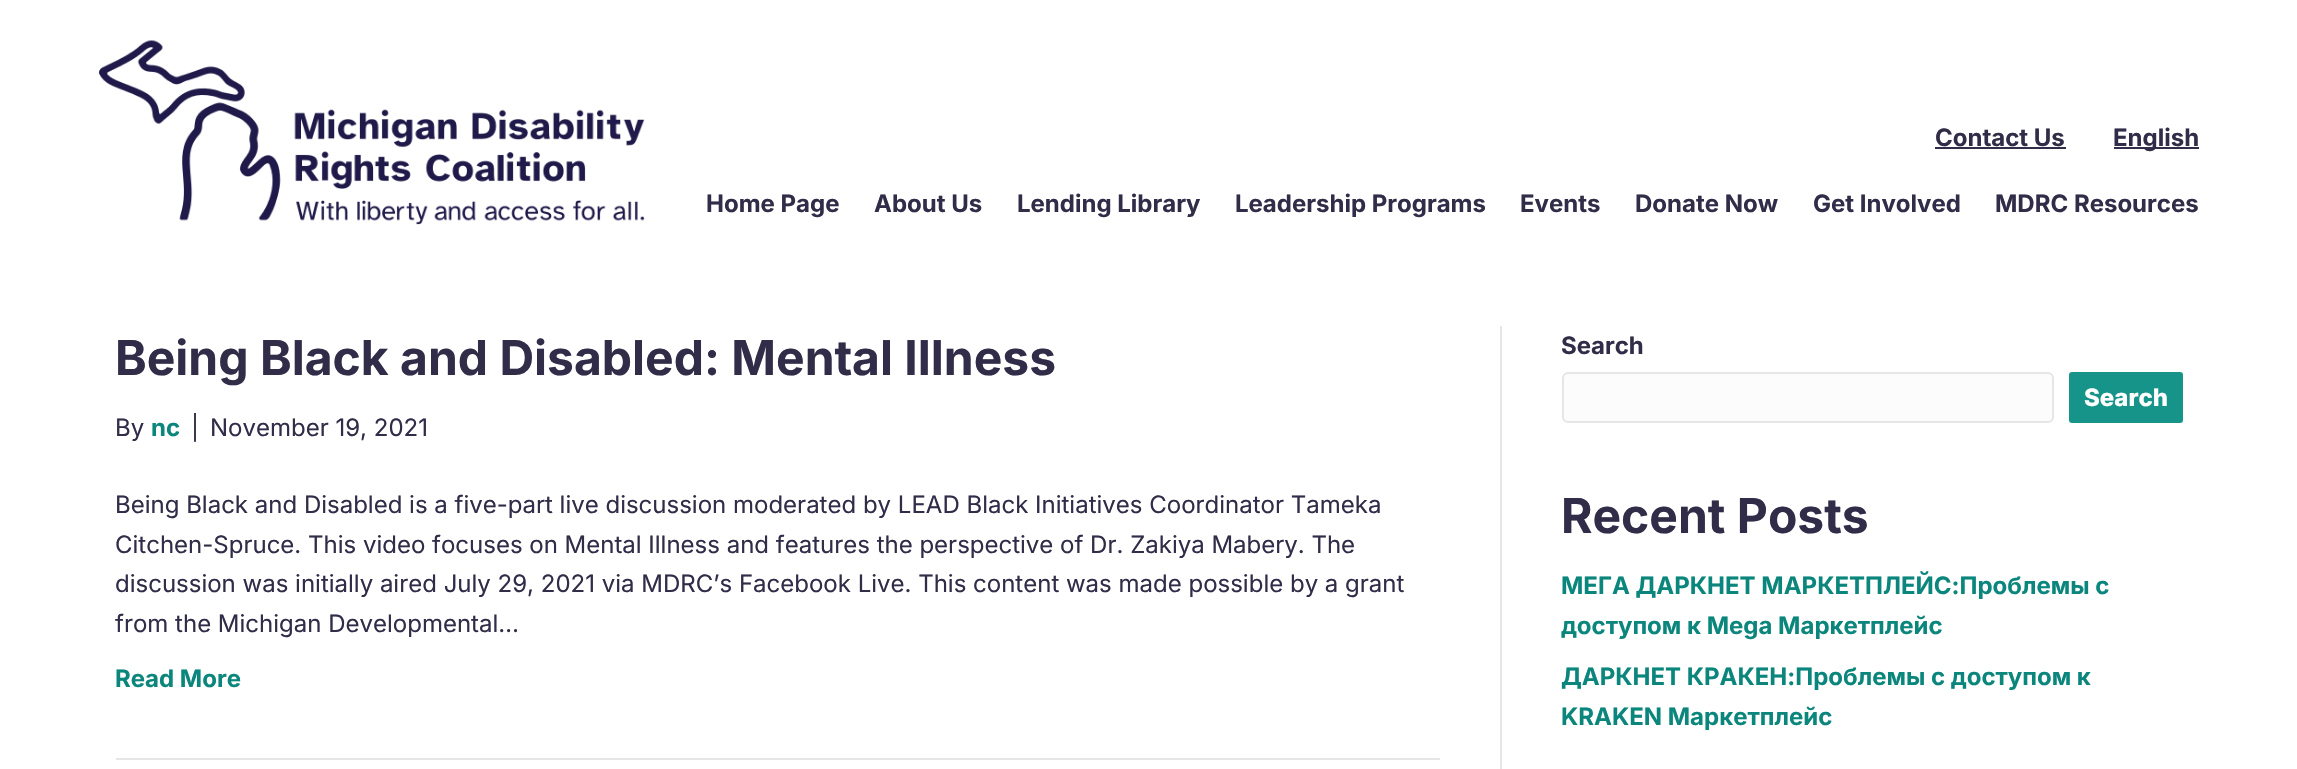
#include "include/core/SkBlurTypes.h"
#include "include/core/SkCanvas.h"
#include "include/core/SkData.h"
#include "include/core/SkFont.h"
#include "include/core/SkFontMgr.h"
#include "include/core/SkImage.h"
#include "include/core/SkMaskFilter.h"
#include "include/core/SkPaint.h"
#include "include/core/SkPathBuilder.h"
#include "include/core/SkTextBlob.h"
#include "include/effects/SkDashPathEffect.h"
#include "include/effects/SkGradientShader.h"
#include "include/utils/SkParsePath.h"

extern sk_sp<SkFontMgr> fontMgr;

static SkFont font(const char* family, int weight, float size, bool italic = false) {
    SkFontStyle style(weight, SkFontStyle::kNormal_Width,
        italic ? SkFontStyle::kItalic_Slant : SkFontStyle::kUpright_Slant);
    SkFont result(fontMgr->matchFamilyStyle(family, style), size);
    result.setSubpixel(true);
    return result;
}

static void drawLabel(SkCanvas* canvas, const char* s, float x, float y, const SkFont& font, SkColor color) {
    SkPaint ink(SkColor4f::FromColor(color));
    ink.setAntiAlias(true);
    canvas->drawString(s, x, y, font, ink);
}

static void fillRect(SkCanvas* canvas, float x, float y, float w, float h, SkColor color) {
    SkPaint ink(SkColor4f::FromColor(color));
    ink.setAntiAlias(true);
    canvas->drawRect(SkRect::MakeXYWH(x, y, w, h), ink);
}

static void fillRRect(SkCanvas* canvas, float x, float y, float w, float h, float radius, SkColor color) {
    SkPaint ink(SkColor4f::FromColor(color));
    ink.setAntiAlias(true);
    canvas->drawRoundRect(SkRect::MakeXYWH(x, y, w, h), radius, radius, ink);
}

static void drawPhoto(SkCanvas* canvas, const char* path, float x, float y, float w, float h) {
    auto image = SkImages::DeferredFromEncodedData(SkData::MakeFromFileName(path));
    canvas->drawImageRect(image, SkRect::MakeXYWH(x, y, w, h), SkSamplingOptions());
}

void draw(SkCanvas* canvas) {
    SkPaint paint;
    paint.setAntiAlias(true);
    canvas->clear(0xFFFFFFFF);
    drawPhoto(canvas, "assets/img1.png", 99, 40, 546, 185);
    SkFont font1 = font("Inter", 700, 24);
    drawLabel(canvas, "Contact Us", 1935, 146, font1, 0xFF312D49);
    fillRect(canvas, 1935, 147, 131, 2, 0xFF312D49);
    fillRect(canvas, 2114, 147, 85, 2, 0xFF312D49);
    drawLabel(canvas, "English", 2113, 146, font1, 0xFF312D49);
    drawLabel(canvas, "Home Page", 706, 212, font1, 0xFF312D49);
    drawLabel(canvas, "About Us", 874, 212, font1, 0xFF312D49);
    drawLabel(canvas, "Lending Library", 1017, 212, font1, 0xFF312D49);
    drawLabel(canvas, "Leadership Programs", 1235, 212, font1, 0xFF312D49);
    drawLabel(canvas, "Events", 1520, 212, font1, 0xFF312D49);
    drawLabel(canvas, "Donate Now", 1635, 212, font1, 0xFF312D49);
    drawLabel(canvas, "Get Involved", 1813, 212, font1, 0xFF312D49);
    drawLabel(canvas, "MDRC Resources", 1995, 212, font1, 0xFF312D49);
    fillRect(canvas, 1500, 326, 2, 443, 0xFFE6E6E6);
    fillRect(canvas, 116, 758, 1324, 2, 0xFFE6E6E6);
    SkFont font2 = font("Inter", 700, 48);
    drawLabel(canvas, "Being Black and Disabled: Mental Illness", 115, 375, font2, 0xFF312D49);
    SkFont font3 = font("Inter", 400, 24);
    drawLabel(canvas, "By", 115, 436, font3, 0xFF312D49);
    drawLabel(canvas, "nc", 151, 436, font1, 0xFF0B867C);
    drawLabel(canvas, "|", 191, 436, font3, 0xFF312D49);
    drawLabel(canvas, "November 19, 2021", 210, 436, font3, 0xFF312D49);
    drawLabel(canvas, "Being Black and Disabled is a five-part live discussion moderated by LEAD Black Initiatives Coordinator Tameka", 115, 513, font3, 0xFF312D49);
    drawLabel(canvas, "Citchen-Spruce. This video focuses on Mental Illness and features the perspective of Dr. Zakiya Mabery. The", 115, 553, font3, 0xFF312D49);
    drawLabel(canvas, "discussion was initially aired July 29, 2021 via MDRC’s Facebook Live. This content was made possible by a grant", 115, 592, font3, 0xFF312D49);
    drawLabel(canvas, "from the Michigan Developmental…", 115, 632, font3, 0xFF312D49);
    drawLabel(canvas, "Read More", 115, 687, font1, 0xFF0B867C);
    drawLabel(canvas, "Search", 1561, 354, font1, 0xFF312D49);
    paint.setColor(0xFFFCFCFC);
    canvas->drawRoundRect(SkRect::MakeXYWH(1563, 373, 490, 49), 5, 5, paint);
    paint.setStroke(true);
    paint.setStrokeWidth(2);
    paint.setColor(0xFFE6E6E6);
    canvas->drawRoundRect(SkRect::MakeXYWH(1563, 373, 490, 49), 5, 5, paint);
    fillRRect(canvas, 2069, 372, 114, 51, 3, 0xFF17948A);
    SkFont font4 = font("Inter", 800, 24);
    drawLabel(canvas, "Search", 2084, 406, font4, 0xFFFFFFFF);
    drawLabel(canvas, "Recent Posts", 1561, 533, font2, 0xFF312D49);
    drawLabel(canvas, "МЕГА ДАРКНЕТ МАРКЕТПЛЕЙС:Проблемы с", 1561, 594, font1, 0xFF0B867C);
    drawLabel(canvas, "доступом к Mega Маркетплейс", 1561, 634, font1, 0xFF0B867C);
    drawLabel(canvas, "ДАРКНЕТ КРАКЕН:Проблемы с доступом к", 1561, 685, font1, 0xFF0B867C);
    drawLabel(canvas, "KRAKEN Маркетплейс", 1561, 725, font1, 0xFF0B867C);
}
